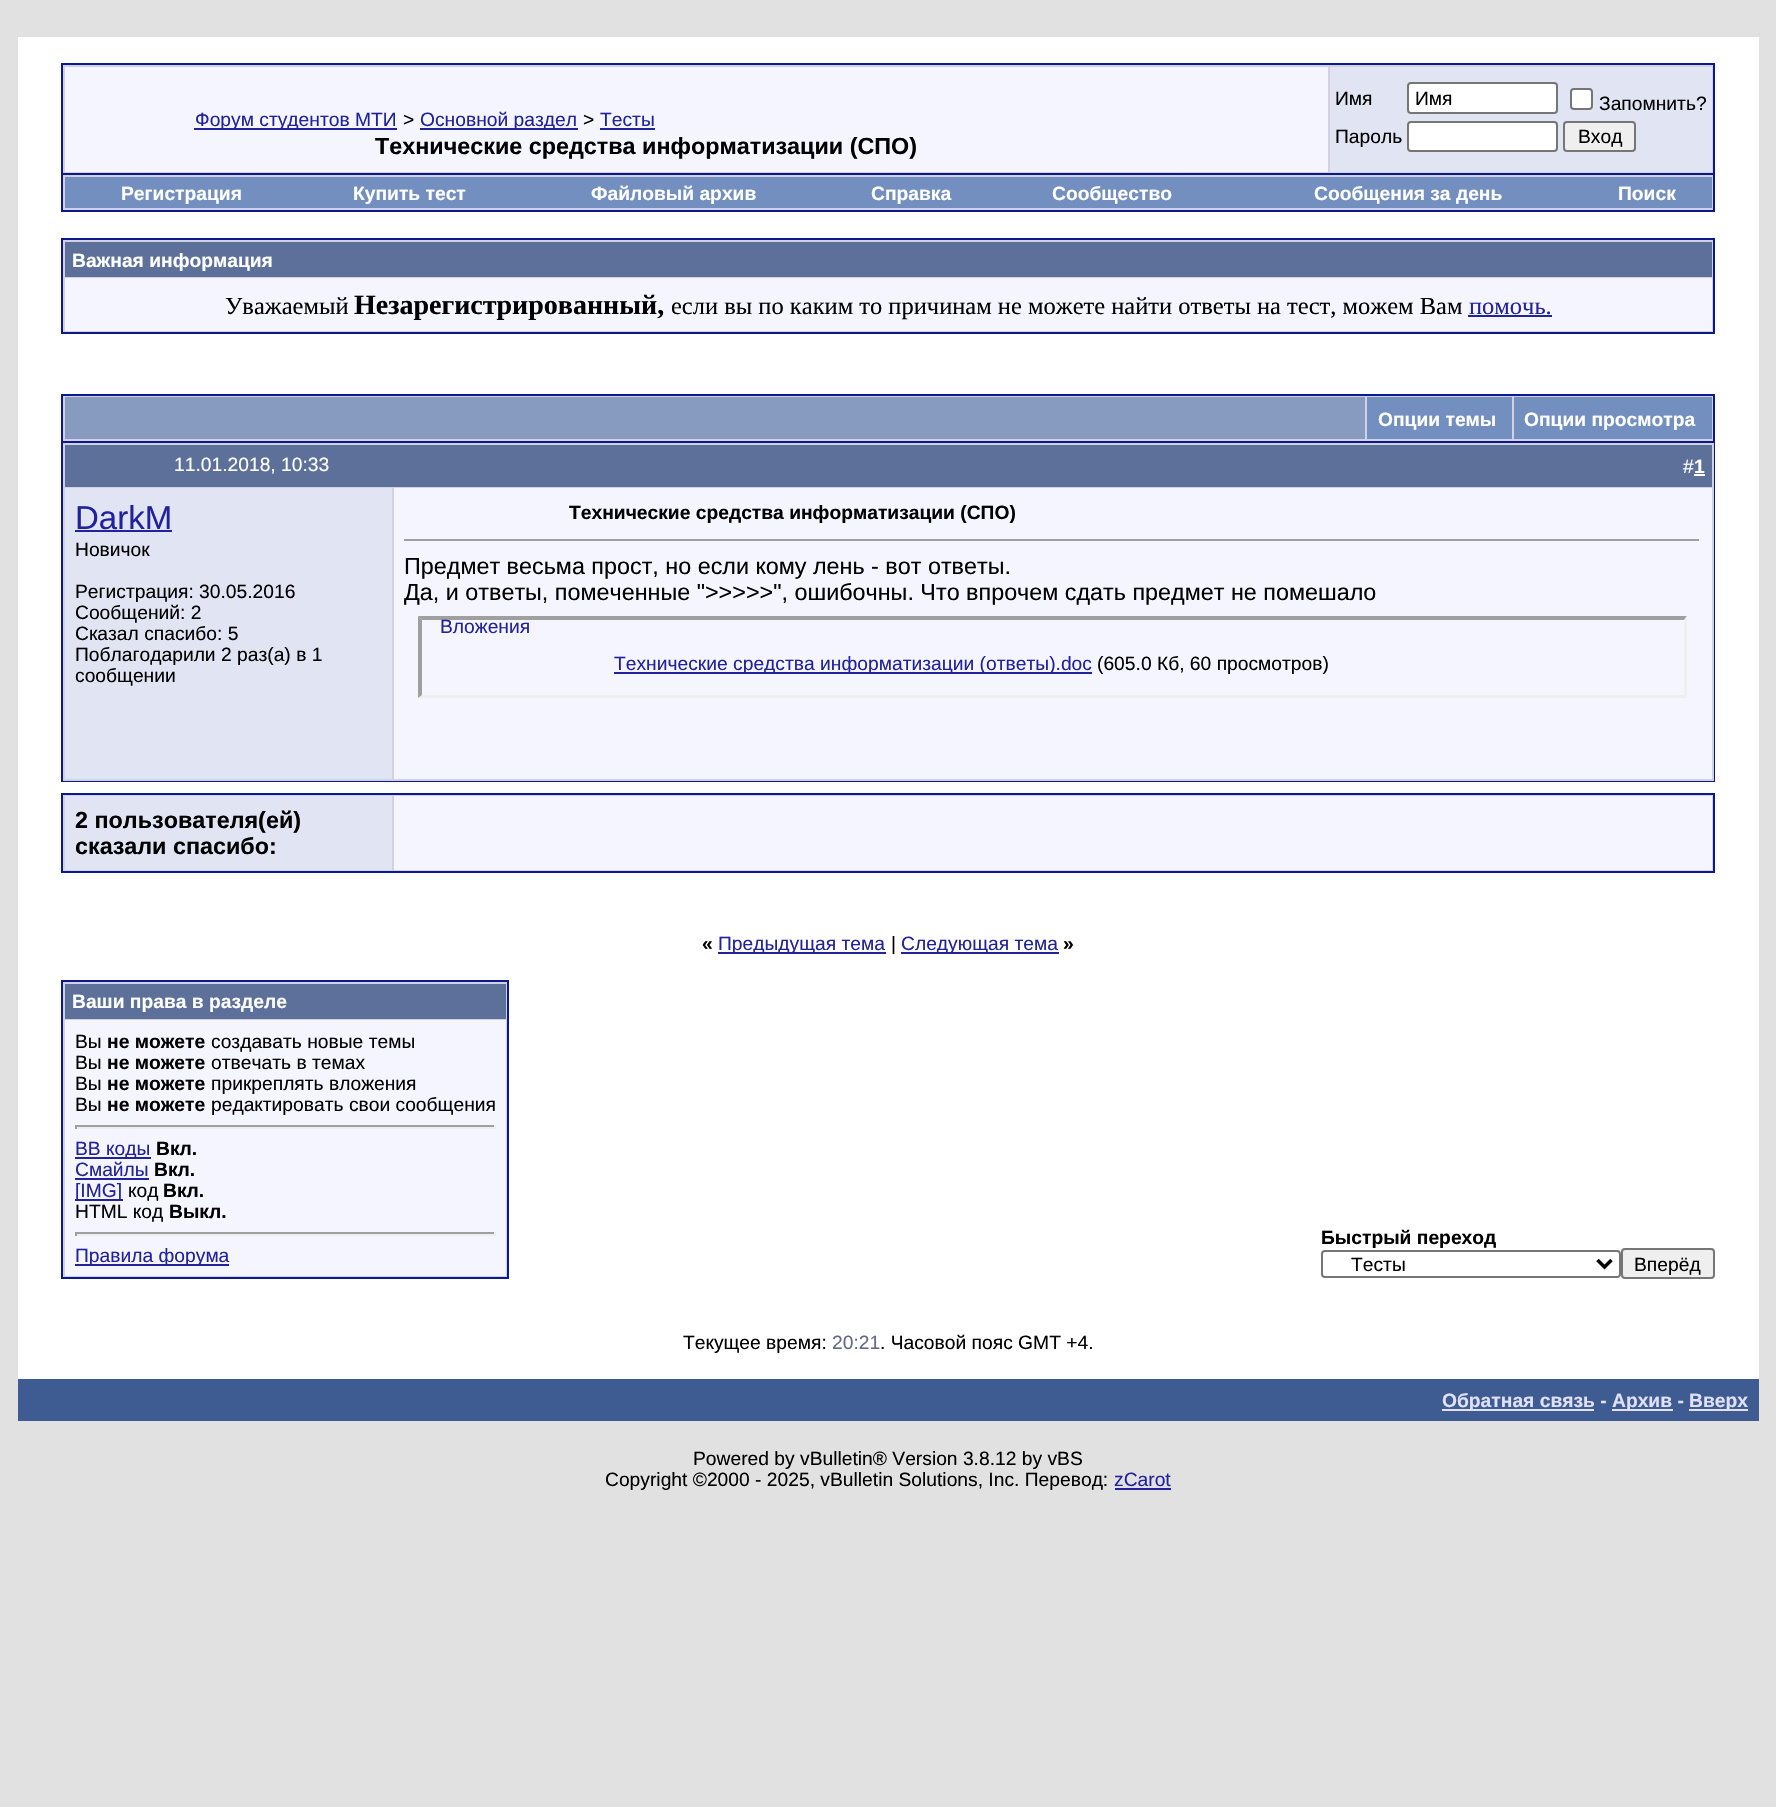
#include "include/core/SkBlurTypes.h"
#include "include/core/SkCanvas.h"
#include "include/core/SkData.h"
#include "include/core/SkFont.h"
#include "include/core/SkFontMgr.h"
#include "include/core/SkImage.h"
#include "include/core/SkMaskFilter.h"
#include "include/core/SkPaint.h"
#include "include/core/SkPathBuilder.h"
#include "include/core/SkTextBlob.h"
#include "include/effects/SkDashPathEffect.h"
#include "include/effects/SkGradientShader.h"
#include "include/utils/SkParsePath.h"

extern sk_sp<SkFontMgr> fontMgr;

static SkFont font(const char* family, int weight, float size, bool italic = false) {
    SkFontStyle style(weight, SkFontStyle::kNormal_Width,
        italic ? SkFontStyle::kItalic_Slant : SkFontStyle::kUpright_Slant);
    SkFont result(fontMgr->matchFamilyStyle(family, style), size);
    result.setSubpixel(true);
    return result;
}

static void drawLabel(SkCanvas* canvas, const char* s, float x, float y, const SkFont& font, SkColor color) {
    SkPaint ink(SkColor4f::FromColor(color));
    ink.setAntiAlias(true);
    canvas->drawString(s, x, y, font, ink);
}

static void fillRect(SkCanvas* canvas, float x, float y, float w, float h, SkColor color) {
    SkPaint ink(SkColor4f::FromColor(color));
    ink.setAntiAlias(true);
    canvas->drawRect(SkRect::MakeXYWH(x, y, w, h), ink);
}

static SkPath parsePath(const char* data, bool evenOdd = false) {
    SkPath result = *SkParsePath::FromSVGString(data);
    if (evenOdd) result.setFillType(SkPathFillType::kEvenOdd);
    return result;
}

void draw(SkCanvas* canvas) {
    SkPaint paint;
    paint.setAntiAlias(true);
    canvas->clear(0xFFE1E1E2);
    fillRect(canvas, 18, 37, 1741, 1342, 0xFFFFFFFF);
    paint.setColor(0xFFD1D1E1);
    canvas->drawRect(SkRect::MakeXYWH(62, 64, 1652, 110), paint);
    paint.setStroke(true);
    paint.setStrokeWidth(2);
    paint.setColor(0xFF0B198C);
    canvas->drawRect(SkRect::MakeXYWH(62, 64, 1652, 110), paint);
    fillRect(canvas, 65, 67, 1263, 105, 0xFFF5F5FF);
    fillRect(canvas, 194, 128, 203, 2, 0xFF22229C);
    SkFont font1 = font("Liberation Sans", 400, 19.25f);
    drawLabel(canvas, "Форум студентов МТИ", 195, 126, font1, 0xFF22229C);
    drawLabel(canvas, ">", 403, 126, font1, 0xFF000000);
    fillRect(canvas, 420, 128, 158, 2, 0xFF22229C);
    drawLabel(canvas, "Основной раздел", 420, 126, font1, 0xFF22229C);
    drawLabel(canvas, ">", 583, 126, font1, 0xFF000000);
    drawLabel(canvas, "Тесты", 600, 126, font1, 0xFF22229C);
    fillRect(canvas, 600, 128, 55, 2, 0xFF22229C);
    SkFont font2 = font("Liberation Sans", 700, 23.35f);
    drawLabel(canvas, "Технические средства информатизации (СПО)", 375, 154, font2, 0xFF000000);
    fillRect(canvas, 1330, 67, 382, 105, 0xFFE1E4F2);
    drawLabel(canvas, "Имя", 1335, 105, font1, 0xFF000000);
    paint.setStroke(false);
    paint.setColor(0xFFFFFFFF);
    canvas->drawRoundRect(SkRect::MakeXYWH(1408, 83, 149, 30), 3, 3, paint);
    paint.setStroke(true);
    paint.setColor(0xFF767676);
    canvas->drawRoundRect(SkRect::MakeXYWH(1408, 83, 149, 30), 3, 3, paint);
    drawLabel(canvas, "Имя", 1415, 105, font1, 0xFF000000);
    paint.setStroke(false);
    paint.setColor(0xFFFFFFFF);
    canvas->drawRoundRect(SkRect::MakeXYWH(1571, 89, 21, 20), 3, 3, paint);
    paint.setStroke(true);
    paint.setColor(0xFF767676);
    canvas->drawRoundRect(SkRect::MakeXYWH(1571, 89, 21, 20), 3, 3, paint);
    drawLabel(canvas, "Запомнить?", 1599, 110, font1, 0xFF000000);
    drawLabel(canvas, "Пароль", 1335, 143, font1, 0xFF000000);
    paint.setStroke(false);
    paint.setColor(0xFFFFFFFF);
    canvas->drawRoundRect(SkRect::MakeXYWH(1408, 122, 149, 29), 3, 3, paint);
    paint.setStroke(true);
    paint.setColor(0xFF767676);
    canvas->drawRoundRect(SkRect::MakeXYWH(1408, 122, 149, 29), 3, 3, paint);
    paint.setStroke(false);
    paint.setColor(0xFFEFEFEF);
    canvas->drawRoundRect(SkRect::MakeXYWH(1564, 122, 71, 29), 3, 3, paint);
    paint.setStroke(true);
    paint.setColor(0xFF767676);
    canvas->drawRoundRect(SkRect::MakeXYWH(1564, 122, 71, 29), 3, 3, paint);
    drawLabel(canvas, "Вход", 1578, 143, font1, 0xFF000000);
    fillRect(canvas, 63, 175, 1650, 35, 0xFFD1D1E1);
    fillRect(canvas, 1713, 175, 2, 37, 0xFF0B198C);
    fillRect(canvas, 61, 210, 1654, 2, 0xFF0B198C);
    fillRect(canvas, 61, 175, 2, 37, 0xFF0B198C);
    fillRect(canvas, 65, 177, 1647, 31, 0xFF738FBF);
    SkFont font3 = font("Liberation Sans", 700, 19.25f);
    drawLabel(canvas, "Регистрация", 121, 200, font3, 0xFFFFFFFF);
    drawLabel(canvas, "Купить тест", 353, 200, font3, 0xFFFFFFFF);
    drawLabel(canvas, "Файловый архив", 591, 200, font3, 0xFFFFFFFF);
    drawLabel(canvas, "Справка", 871, 200, font3, 0xFFFFFFFF);
    drawLabel(canvas, "Сообщество", 1052, 200, font3, 0xFFFFFFFF);
    drawLabel(canvas, "Сообщения за день", 1314, 200, font3, 0xFFFFFFFF);
    drawLabel(canvas, "Поиск", 1618, 200, font3, 0xFFFFFFFF);
    paint.setStroke(false);
    paint.setColor(0xFFD1D1E1);
    canvas->drawRect(SkRect::MakeXYWH(62, 239, 1652, 94), paint);
    paint.setStroke(true);
    paint.setColor(0xFF0B198C);
    canvas->drawRect(SkRect::MakeXYWH(62, 239, 1652, 94), paint);
    fillRect(canvas, 65, 242, 1647, 35, 0xFF5C7099);
    drawLabel(canvas, "Важная информация", 72, 267, font3, 0xFFFFFFFF);
    fillRect(canvas, 65, 278, 1647, 53, 0xFFF5F5FF);
    SkFont font4 = font("Liberation Serif", 400, 24.5f);
    drawLabel(canvas, "Уважаемый", 225, 314, font4, 0xFF000000);
    SkFont font5 = font("Liberation Serif", 700, 28);
    drawLabel(canvas, "Незарегистрированный,", 354, 314, font5, 0xFF000000);
    drawLabel(canvas, "если вы по каким то причинам не можете найти ответы на тест, можем Вам", 671, 314, font4, 0xFF000000);
    drawLabel(canvas, "помочь.", 1469, 314, font4, 0xFF22229C);
    fillRect(canvas, 1468, 315, 84, 2, 0xFF22229C);
    fillRect(canvas, 63, 396, 1650, 45, 0xFFD1D1E1);
    fillRect(canvas, 61, 394, 1654, 2, 0xFF0B198C);
    fillRect(canvas, 1713, 394, 2, 47, 0xFF0B198C);
    fillRect(canvas, 61, 394, 2, 47, 0xFF0B198C);
    fillRect(canvas, 65, 397, 1300, 42, 0xFF869BBF);
    fillRect(canvas, 1367, 397, 145, 42, 0xFF738FBF);
    drawLabel(canvas, "Опции темы", 1378, 426, font3, 0xFFFFFFFF);
    fillRect(canvas, 1514, 397, 198, 42, 0xFF738FBF);
    drawLabel(canvas, "Опции просмотра", 1524, 426, font3, 0xFFFFFFFF);
    canvas->drawRect(SkRect::MakeXYWH(62, 442, 1652, 339), paint);
    fillRect(canvas, 65, 445, 1647, 42, 0xFF5C7099);
    fillRect(canvas, 63, 443, 1650, 2, 0xFFD1D1E1);
    fillRect(canvas, 63, 487, 331, 1, 0xFFD1D1E1);
    fillRect(canvas, 63, 443, 2, 287, 0xFFD1D1E1);
    drawLabel(canvas, "11.01.2018, 10:33", 174, 471, font1, 0xFFFFFFFF);
    fillRect(canvas, 1712, 443, 2, 338, 0xFFD1D1E1);
    fillRect(canvas, 394, 487, 1319, 1, 0xFFD1D1E1);
    drawLabel(canvas, "#", 1683, 473, font1, 0xFFFFFFFF);
    drawLabel(canvas, "1", 1694, 473, font3, 0xFFFFFFFF);
    fillRect(canvas, 1694, 474, 11, 2, 0xFFFFFFFF);
    fillRect(canvas, 65, 488, 327, 291, 0xFFE1E4F2);
    fillRect(canvas, 392, 488, 2, 293, 0xFFD1D1E1);
    SkFont font6 = font("Liberation Sans", 400, 33);
    drawLabel(canvas, "DarkM", 75, 529, font6, 0xFF22229C);
    fillRect(canvas, 75, 530, 97, 2, 0xFF22229C);
    drawLabel(canvas, "Новичок", 75, 556, font1, 0xFF000000);
    drawLabel(canvas, "Регистрация: 30.05.2016", 75, 598, font1, 0xFF000000);
    drawLabel(canvas, "Сообщений: 2", 75, 619, font1, 0xFF000000);
    drawLabel(canvas, "Сказал спасибо: 5", 75, 640, font1, 0xFF000000);
    drawLabel(canvas, "Поблагодарили 2 раз(а) в 1", 75, 661, font1, 0xFF000000);
    drawLabel(canvas, "сообщении", 75, 682, font1, 0xFF000000);
    fillRect(canvas, 394, 488, 1318, 291, 0xFFF5F5FF);
    drawLabel(canvas, "Технические средства информатизации (СПО)", 569, 519, font3, 0xFF000000);
    fillRect(canvas, 404, 539, 1297, 2, 0xFF9F9F9F);
    fillRect(canvas, 1699, 539, 2, 2, 0xFFEEEEEE);
    SkFont font7 = font("Liberation Sans", 400, 23.35f);
    drawLabel(canvas, "Предмет весьма прост, но если кому лень - вот ответы.", 404, 574, font7, 0xFF000000);
    drawLabel(canvas, "Да, и ответы, помеченные \">>>>>\", ошибочны. Что впрочем сдать предмет не помешало", 404, 600, font7, 0xFF000000);
    paint.setStroke(false);
    paint.setColor(0xFF9F9F9F);
    canvas->drawPath(parsePath("M418 616H1687L1684 620H422Z"), paint);
    paint.setColor(0xFFEFEFEF);
    canvas->drawPath(parsePath("M1687 616V698L1684 695V620Z"), paint);
    canvas->drawPath(parsePath("M1687 698H418L422 695H1684Z"), paint);
    paint.setColor(0xFF9F9F9F);
    canvas->drawPath(parsePath("M418 698V616L422 620V695Z"), paint);
    drawLabel(canvas, "Вложения", 440, 633, font1, 0xFF22229C);
    fillRect(canvas, 614, 672, 478, 2, 0xFF22229C);
    drawLabel(canvas, "Технические средства информатизации (ответы).doc", 614, 670, font1, 0xFF22229C);
    drawLabel(canvas, "(605.0 Кб, 60 просмотров)", 1097, 670, font1, 0xFF000000);
    fillRect(canvas, 63, 779, 1650, 2, 0xFFD1D1E1);
    fillRect(canvas, 63, 730, 2, 51, 0xFFD1D1E1);
    paint.setColor(0xFFD1D1E1);
    canvas->drawRect(SkRect::MakeXYWH(62, 794, 1652, 78), paint);
    paint.setStroke(true);
    paint.setColor(0xFF0B198C);
    canvas->drawRect(SkRect::MakeXYWH(62, 794, 1652, 78), paint);
    fillRect(canvas, 65, 796, 327, 74, 0xFFE1E4F2);
    drawLabel(canvas, "2 пользователя(ей)", 75, 828, font2, 0xFF000000);
    drawLabel(canvas, "сказали cпасибо:", 75, 854, font2, 0xFF000000);
    fillRect(canvas, 394, 796, 1318, 74, 0xFFF5F5FF);
    drawLabel(canvas, "«", 702, 950, font3, 0xFF000000);
    fillRect(canvas, 718, 952, 168, 2, 0xFF22229C);
    drawLabel(canvas, "Предыдущая тема", 718, 950, font1, 0xFF22229C);
    drawLabel(canvas, "|", 891, 950, font1, 0xFF000000);
    fillRect(canvas, 901, 952, 158, 2, 0xFF22229C);
    drawLabel(canvas, "Следующая тема", 901, 950, font1, 0xFF22229C);
    drawLabel(canvas, "»", 1063, 950, font3, 0xFF000000);
    paint.setStroke(false);
    paint.setColor(0xFFD1D1E1);
    canvas->drawRect(SkRect::MakeXYWH(62, 981, 446, 297), paint);
    paint.setStroke(true);
    paint.setColor(0xFF0B198C);
    canvas->drawRect(SkRect::MakeXYWH(62, 981, 446, 297), paint);
    fillRect(canvas, 65, 984, 441, 35, 0xFF5C7099);
    drawLabel(canvas, "Ваши права в разделе", 72, 1008, font3, 0xFFFFFFFF);
    fillRect(canvas, 65, 1020, 441, 256, 0xFFF5F5FF);
    drawLabel(canvas, "Вы", 75, 1048, font1, 0xFF000000);
    drawLabel(canvas, "не можете", 107, 1048, font3, 0xFF000000);
    drawLabel(canvas, "создавать новые темы", 211, 1048, font1, 0xFF000000);
    drawLabel(canvas, "Вы", 75, 1069, font1, 0xFF000000);
    drawLabel(canvas, "не можете", 107, 1069, font3, 0xFF000000);
    drawLabel(canvas, "отвечать в темах", 211, 1069, font1, 0xFF000000);
    drawLabel(canvas, "Вы", 75, 1090, font1, 0xFF000000);
    drawLabel(canvas, "не можете", 107, 1090, font3, 0xFF000000);
    drawLabel(canvas, "прикреплять вложения", 211, 1090, font1, 0xFF000000);
    drawLabel(canvas, "Вы", 75, 1111, font1, 0xFF000000);
    drawLabel(canvas, "не можете", 107, 1111, font3, 0xFF000000);
    drawLabel(canvas, "редактировать свои сообщения", 211, 1111, font1, 0xFF000000);
    fillRect(canvas, 75, 1125, 420, 2, 0xFF9F9F9F);
    fillRect(canvas, 494, 1125, 2, 4, 0xFFEEEEEE);
    fillRect(canvas, 75, 1127, 420, 2, 0xFFEEEEEE);
    fillRect(canvas, 75, 1125, 2, 4, 0xFF9F9F9F);
    fillRect(canvas, 75, 1157, 76, 2, 0xFF22229C);
    drawLabel(canvas, "BB коды", 75, 1155, font1, 0xFF22229C);
    drawLabel(canvas, "Вкл.", 156, 1155, font3, 0xFF000000);
    drawLabel(canvas, "Смайлы", 75, 1176, font1, 0xFF22229C);
    fillRect(canvas, 75, 1178, 74, 2, 0xFF22229C);
    drawLabel(canvas, "Вкл.", 154, 1176, font3, 0xFF000000);
    fillRect(canvas, 75, 1199, 48, 2, 0xFF22229C);
    drawLabel(canvas, "[IMG]", 75, 1197, font1, 0xFF22229C);
    drawLabel(canvas, "код", 128, 1197, font1, 0xFF000000);
    drawLabel(canvas, "Вкл.", 163, 1197, font3, 0xFF000000);
    drawLabel(canvas, "HTML код", 75, 1218, font1, 0xFF000000);
    drawLabel(canvas, "Выкл.", 169, 1218, font3, 0xFF000000);
    fillRect(canvas, 75, 1232, 420, 2, 0xFF9F9F9F);
    fillRect(canvas, 494, 1232, 2, 4, 0xFFEEEEEE);
    fillRect(canvas, 75, 1234, 420, 2, 0xFFEEEEEE);
    fillRect(canvas, 75, 1232, 2, 4, 0xFF9F9F9F);
    fillRect(canvas, 75, 1264, 154, 2, 0xFF22229C);
    drawLabel(canvas, "Правила форума", 75, 1262, font1, 0xFF22229C);
    drawLabel(canvas, "Быстрый переход", 1321, 1244, font3, 0xFF000000);
    paint.setColor(0xFF767676);
    canvas->drawRoundRect(SkRect::MakeXYWH(1322, 1251, 298, 26), 3, 3, paint);
    paint.setStrokeWidth(3.5f);
    paint.setColor(0xFF000000);
    canvas->drawPath(parsePath("M1597.5 1260L1604.5 1267L1611.5 1260"), paint);
    drawLabel(canvas, "Тесты", 1351, 1271, font1, 0xFF000000);
    paint.setStroke(false);
    paint.setColor(0xFFEFEFEF);
    canvas->drawRoundRect(SkRect::MakeXYWH(1622, 1249, 92, 29), 3, 3, paint);
    paint.setStroke(true);
    paint.setStrokeWidth(2);
    paint.setColor(0xFF767676);
    canvas->drawRoundRect(SkRect::MakeXYWH(1622, 1249, 92, 29), 3, 3, paint);
    drawLabel(canvas, "Вперёд", 1634, 1271, font1, 0xFF000000);
    drawLabel(canvas, "Текущее время:", 683, 1349, font1, 0xFF000000);
    drawLabel(canvas, "20:21", 832, 1349, font1, 0xFF666686);
    drawLabel(canvas, ". Часовой пояс GMT +4.", 880, 1349, font1, 0xFF000000);
    fillRect(canvas, 18, 1379, 1741, 42, 0xFF3E5C92);
    fillRect(canvas, 1442, 1409, 152, 2, 0xFFE0E0F6);
    drawLabel(canvas, "Обратная связь -", 1442, 1407, font3, 0xFFE0E0F6);
    fillRect(canvas, 1612, 1409, 61, 2, 0xFFE0E0F6);
    drawLabel(canvas, "Архив -", 1612, 1407, font3, 0xFFE0E0F6);
    fillRect(canvas, 1689, 1409, 59, 2, 0xFFE0E0F6);
    drawLabel(canvas, "Вверх", 1689, 1407, font3, 0xFFE0E0F6);
    drawLabel(canvas, "Powered by vBulletin® Version 3.8.12 by vBS", 693, 1465, font1, 0xFF000000);
    drawLabel(canvas, "Copyright ©2000 - 2025, vBulletin Solutions, Inc. Перевод:", 605, 1486, font1, 0xFF000000);
    drawLabel(canvas, "zCarot", 1114, 1486, font1, 0xFF22229C);
    fillRect(canvas, 1115, 1488, 56, 2, 0xFF22229C);
}
